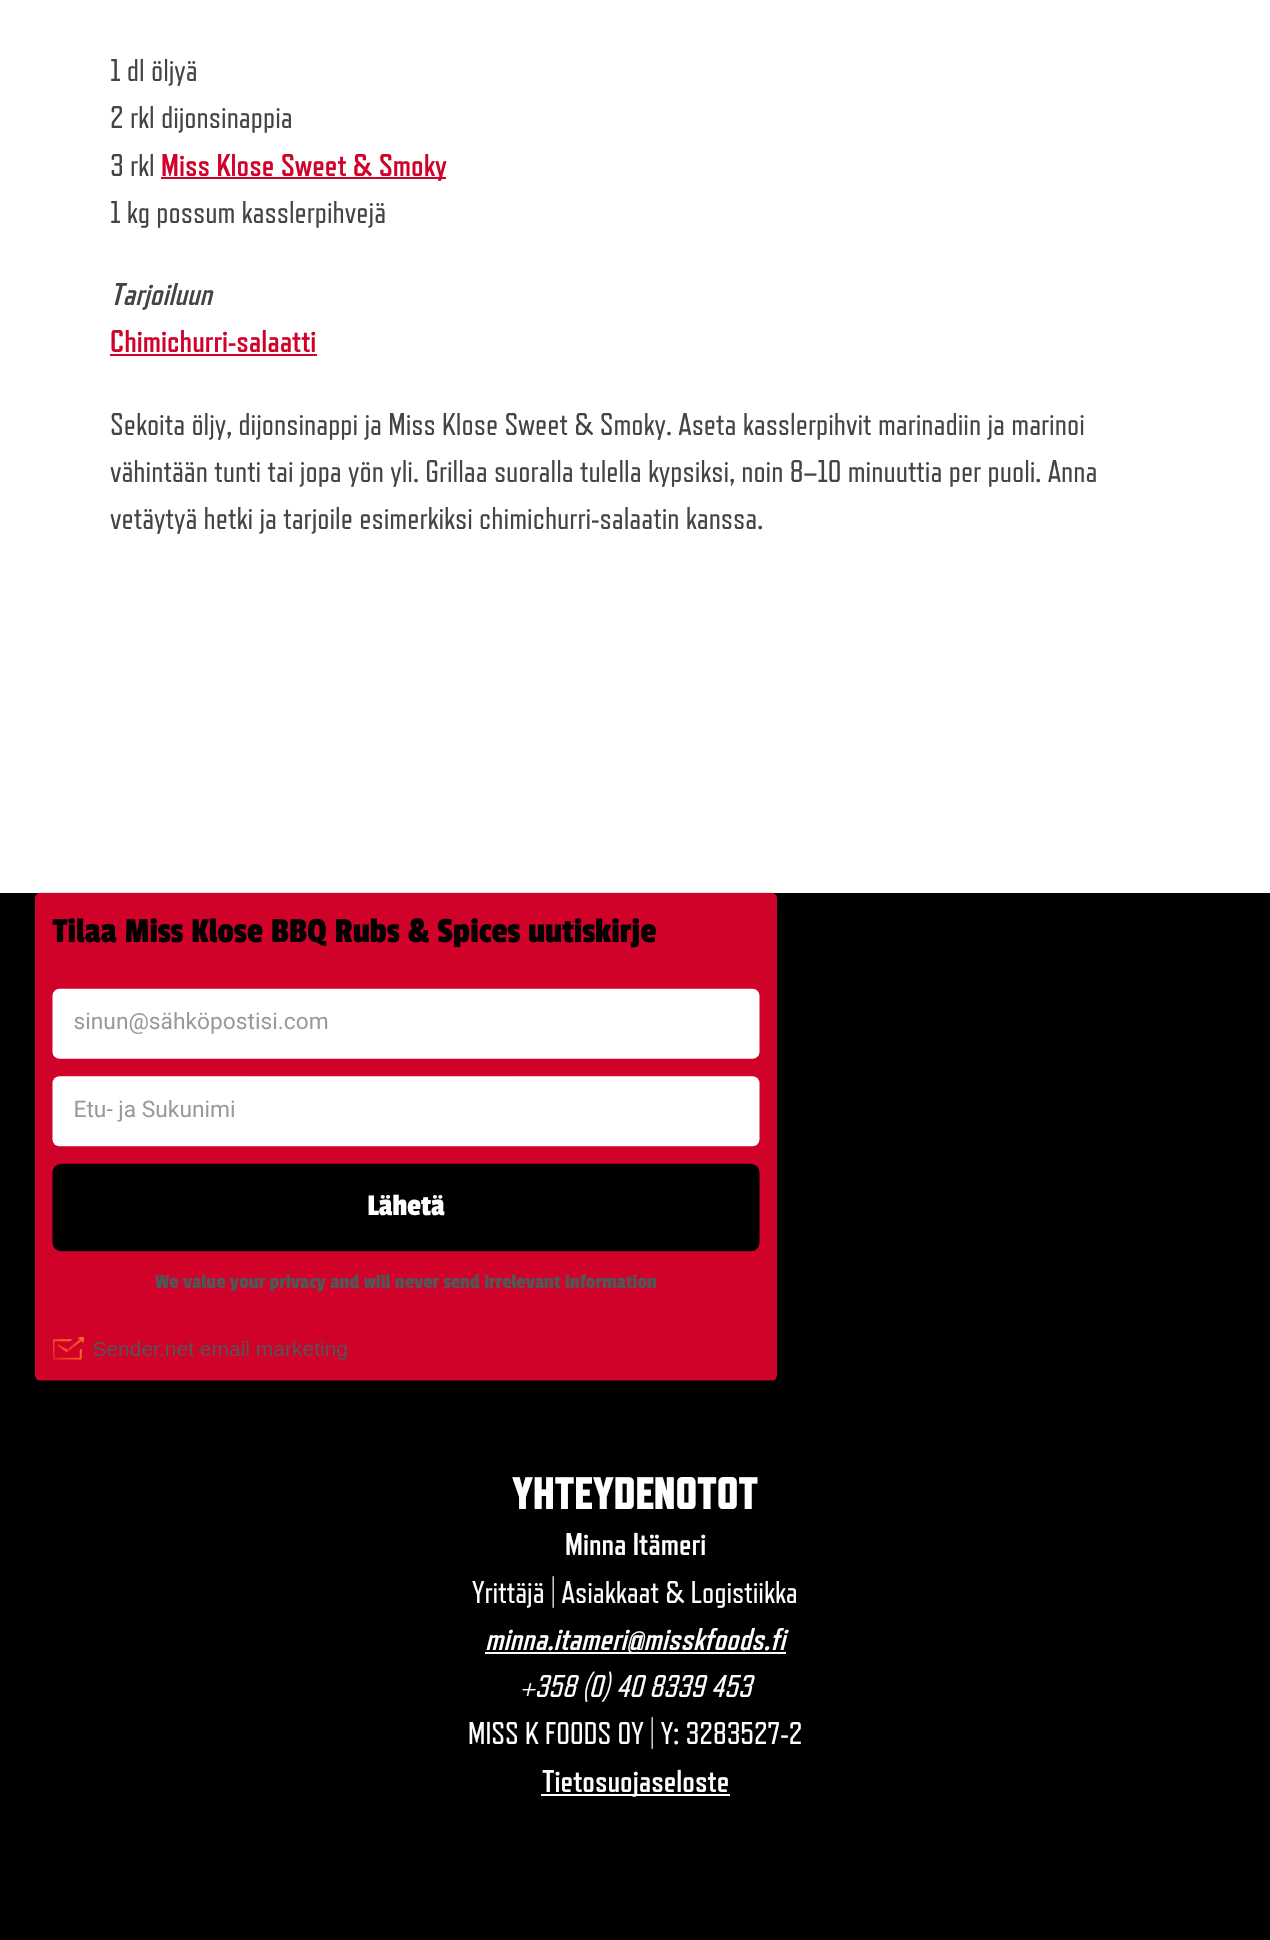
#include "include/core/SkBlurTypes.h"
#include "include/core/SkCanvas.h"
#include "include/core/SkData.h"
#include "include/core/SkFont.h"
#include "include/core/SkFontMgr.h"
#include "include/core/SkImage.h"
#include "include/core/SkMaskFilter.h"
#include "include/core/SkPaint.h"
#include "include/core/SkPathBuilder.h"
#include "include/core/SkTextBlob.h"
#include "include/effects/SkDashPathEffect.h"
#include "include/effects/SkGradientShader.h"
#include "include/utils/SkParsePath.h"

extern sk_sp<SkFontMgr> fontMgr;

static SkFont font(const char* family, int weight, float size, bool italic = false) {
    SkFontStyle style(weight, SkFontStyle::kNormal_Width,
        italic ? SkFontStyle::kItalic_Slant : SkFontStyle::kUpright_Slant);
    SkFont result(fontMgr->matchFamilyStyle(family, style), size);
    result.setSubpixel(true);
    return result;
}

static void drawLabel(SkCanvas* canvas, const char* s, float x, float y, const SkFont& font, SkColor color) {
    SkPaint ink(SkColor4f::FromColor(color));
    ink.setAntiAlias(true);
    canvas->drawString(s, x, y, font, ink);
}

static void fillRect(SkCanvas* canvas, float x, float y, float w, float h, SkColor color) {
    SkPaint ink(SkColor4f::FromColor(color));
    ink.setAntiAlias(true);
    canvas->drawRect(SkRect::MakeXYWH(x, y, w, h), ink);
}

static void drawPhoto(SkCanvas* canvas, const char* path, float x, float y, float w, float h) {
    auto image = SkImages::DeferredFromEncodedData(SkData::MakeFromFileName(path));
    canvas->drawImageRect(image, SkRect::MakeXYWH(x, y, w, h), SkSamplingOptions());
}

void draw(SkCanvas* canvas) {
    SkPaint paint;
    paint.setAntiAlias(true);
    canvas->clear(0xFFFFFFFF);
    SkFont font1 = font("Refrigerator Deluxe", 400, 31.5f);
    drawLabel(canvas, "1 dl öljyä", 110, 81, font1, 0xFF444444);
    drawLabel(canvas, "2 rkl dijonsinappia", 110, 128, font1, 0xFF444444);
    drawLabel(canvas, "3 rkl", 110, 176, font1, 0xFF444444);
    fillRect(canvas, 161, 177, 285, 2, 0xFFD00229);
    SkFont font2 = font("Refrigerator Deluxe", 700, 31.5f);
    drawLabel(canvas, "Miss Klose Sweet & Smoky", 161, 176, font2, 0xFFD00229);
    drawLabel(canvas, "1 kg possum kasslerpihvejä", 110, 223, font1, 0xFF444444);
    SkFont font3 = font("Refrigerator Deluxe", 700, 31.5f, true);
    drawLabel(canvas, "Tarjoiluun", 110, 305, font3, 0xFF444444);
    drawLabel(canvas, "Chimichurri-salaatti", 110, 352, font2, 0xFFD00229);
    fillRect(canvas, 110, 354, 207, 2, 0xFFD00229);
    drawLabel(canvas, "Sekoita öljy, dijonsinappi ja Miss Klose Sweet & Smoky. Aseta kasslerpihvit marinadiin ja marinoi", 110, 435, font1, 0xFF444444);
    drawLabel(canvas, "vähintään tunti tai jopa yön yli. Grillaa suoralla tulella kypsiksi, noin 8–10 minuuttia per puoli. Anna", 110, 482, font1, 0xFF444444);
    drawLabel(canvas, "vetäytyä hetki ja tarjoile esimerkiksi chimichurri-salaatin kanssa.", 110, 529, font1, 0xFF444444);
    fillRect(canvas, 0, 893, 1270, 1047, 0xFF000000);
    drawPhoto(canvas, "assets/img1.png", 35, 892, 742, 489);
    SkFont font4 = font("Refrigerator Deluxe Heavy", 900, 45.5f);
    drawLabel(canvas, "YHTEYDENOTOT", 512, 1509, font4, 0xFFFFFFFF);
    drawLabel(canvas, "Minna Itämeri", 565, 1555, font2, 0xFFFFFFFF);
    drawLabel(canvas, "Yrittäjä | Asiakkaat & Logistiikka", 472, 1603, font1, 0xFFFFFFFF);
    fillRect(canvas, 485, 1652, 301, 2, 0xFFFFFFFF);
    drawLabel(canvas, "minna.itameri@misskfoods.fi", 485, 1650, font3, 0xFFFFFFFF);
    SkFont font5 = font("Refrigerator Deluxe", 400, 31.5f, true);
    drawLabel(canvas, "+358 (0) 40 8339 453", 520, 1697, font5, 0xFFFFFFFF);
    drawLabel(canvas, "MISS K FOODS OY | Y: 3283527-2", 468, 1744, font1, 0xFFFFFFFF);
    fillRect(canvas, 541, 1794, 189, 2, 0xFFFFFFFF);
    drawLabel(canvas, "Tietosuojaseloste", 542, 1792, font2, 0xFFFFFFFF);
}
